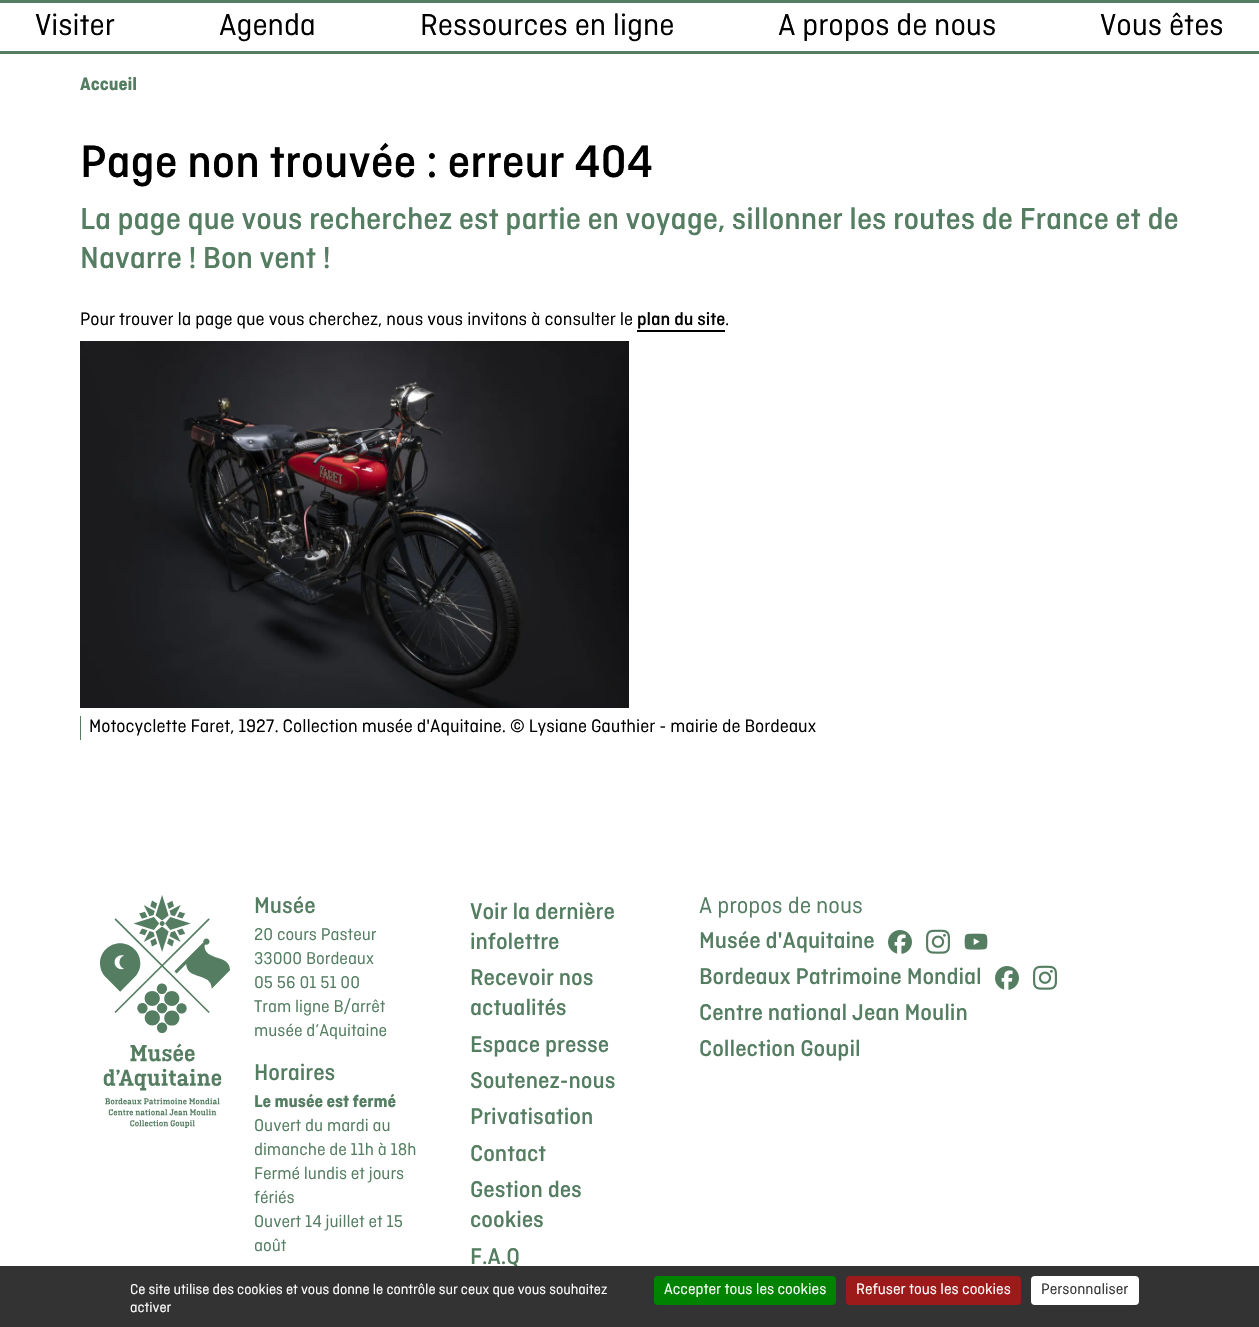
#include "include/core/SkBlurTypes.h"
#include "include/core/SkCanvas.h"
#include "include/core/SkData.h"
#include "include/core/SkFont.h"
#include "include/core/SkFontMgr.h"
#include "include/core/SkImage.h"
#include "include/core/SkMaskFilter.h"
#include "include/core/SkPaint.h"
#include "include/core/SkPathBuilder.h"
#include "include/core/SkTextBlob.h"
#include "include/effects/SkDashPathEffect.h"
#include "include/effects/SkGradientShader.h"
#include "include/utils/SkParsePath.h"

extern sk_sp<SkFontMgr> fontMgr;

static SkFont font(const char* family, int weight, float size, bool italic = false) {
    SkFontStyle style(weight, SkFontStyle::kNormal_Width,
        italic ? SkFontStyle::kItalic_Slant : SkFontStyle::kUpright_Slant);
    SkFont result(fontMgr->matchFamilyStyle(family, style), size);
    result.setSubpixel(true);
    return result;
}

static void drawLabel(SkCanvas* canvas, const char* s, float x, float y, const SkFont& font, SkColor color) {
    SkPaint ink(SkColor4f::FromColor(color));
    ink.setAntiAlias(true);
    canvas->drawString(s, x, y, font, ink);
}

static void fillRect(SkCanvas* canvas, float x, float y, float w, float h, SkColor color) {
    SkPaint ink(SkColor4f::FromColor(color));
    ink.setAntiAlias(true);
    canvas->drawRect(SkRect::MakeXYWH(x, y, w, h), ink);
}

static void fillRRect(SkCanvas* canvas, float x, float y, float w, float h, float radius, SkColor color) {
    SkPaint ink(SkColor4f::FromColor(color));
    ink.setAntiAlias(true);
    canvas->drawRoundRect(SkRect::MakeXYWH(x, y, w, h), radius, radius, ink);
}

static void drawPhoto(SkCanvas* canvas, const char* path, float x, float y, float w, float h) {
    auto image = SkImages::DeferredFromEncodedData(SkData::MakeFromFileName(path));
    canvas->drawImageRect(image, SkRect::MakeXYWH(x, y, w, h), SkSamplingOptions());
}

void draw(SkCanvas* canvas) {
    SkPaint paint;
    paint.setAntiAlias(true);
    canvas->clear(0xFFFFFFFF);
    fillRect(canvas, 0, 0, 1259, 3, 0xFF547D61);
    fillRect(canvas, 0, 51, 1259, 3, 0xFF547D61);
    SkFont font1 = font("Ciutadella", 400, 32);
    drawLabel(canvas, "Visiter", 35, 35, font1, 0xFF000000);
    drawLabel(canvas, "Agenda", 219, 35, font1, 0xFF000000);
    drawLabel(canvas, "Ressources en ligne", 420, 35, font1, 0xFF000000);
    drawLabel(canvas, "A propos de nous", 778, 35, font1, 0xFF000000);
    drawLabel(canvas, "Vous êtes", 1100, 35, font1, 0xFF000000);
    SkFont font2 = font("Ciutadella", 700, 19);
    drawLabel(canvas, "Accueil", 80, 90, font2, 0xFF547D61);
    SkFont font3 = font("Ciutadella", 500, 48);
    drawLabel(canvas, "Page non trouvée : erreur 404", 80, 177, font3, 0xFF000000);
    SkFont font4 = font("Ciutadella", 500, 32);
    drawLabel(canvas, "La page que vous recherchez est partie en voyage, sillonner les routes de France et de", 80, 229, font4, 0xFF547D61);
    drawLabel(canvas, "Navarre ! Bon vent !", 80, 268, font4, 0xFF547D61);
    SkFont font5 = font("Ciutadella", 400, 19);
    drawLabel(canvas, "Pour trouver la page que vous cherchez, nous vous invitons à consulter le", 80, 325, font5, 0xFF000000);
    SkFont font6 = font("Ciutadella", 500, 19);
    drawLabel(canvas, "plan du site", 637, 325, font6, 0xFF000000);
    fillRect(canvas, 637, 330, 88, 2, 0xFF000000);
    drawLabel(canvas, ".", 725, 325, font5, 0xFF000000);
    drawPhoto(canvas, "assets/img1.png", 80, 341, 549, 367);
    fillRect(canvas, 80, 716, 1, 24, 0xFF547D61);
    drawLabel(canvas, "Motocyclette Faret, 1927. Collection musée d'Aquitaine. © Lysiane Gauthier - mairie de Bordeaux", 89, 732, font5, 0xFF000000);
    drawPhoto(canvas, "assets/img2.png", 100, 895, 130, 233);
    SkFont font7 = font("Ciutadella", 500, 24);
    drawLabel(canvas, "Musée", 254, 913, font7, 0xFF547D61);
    SkFont font8 = font("Ciutadella", 400, 18);
    drawLabel(canvas, "20 cours Pasteur", 254, 940, font8, 0xFF547D61);
    drawLabel(canvas, "33000 Bordeaux", 254, 964, font8, 0xFF547D61);
    drawLabel(canvas, "05 56 01 51 00", 254, 988, font8, 0xFF547D61);
    drawLabel(canvas, "Tram ligne B/arrêt", 254, 1012, font8, 0xFF547D61);
    drawLabel(canvas, "musée d’Aquitaine", 254, 1036, font8, 0xFF547D61);
    drawLabel(canvas, "Horaires", 254, 1080, font7, 0xFF547D61);
    SkFont font9 = font("Ciutadella", 700, 18);
    drawLabel(canvas, "Le musée est fermé", 254, 1107, font9, 0xFF547D61);
    drawLabel(canvas, "Ouvert du mardi au", 254, 1131, font8, 0xFF547D61);
    drawLabel(canvas, "dimanche de 11h à 18h", 254, 1155, font8, 0xFF547D61);
    drawLabel(canvas, "Fermé lundis et jours", 254, 1179, font8, 0xFF547D61);
    drawLabel(canvas, "fériés", 254, 1203, font8, 0xFF547D61);
    drawLabel(canvas, "Ouvert 14 juillet et 15", 254, 1227, font8, 0xFF547D61);
    drawLabel(canvas, "août", 254, 1251, font8, 0xFF547D61);
    drawLabel(canvas, "Voir la dernière", 470, 919, font7, 0xFF547D61);
    drawLabel(canvas, "infolettre", 470, 949, font7, 0xFF547D61);
    drawLabel(canvas, "Recevoir nos", 470, 985, font7, 0xFF547D61);
    drawLabel(canvas, "actualités", 470, 1015, font7, 0xFF547D61);
    drawLabel(canvas, "Espace presse", 470, 1052, font7, 0xFF547D61);
    drawLabel(canvas, "Soutenez-nous", 470, 1088, font7, 0xFF547D61);
    drawLabel(canvas, "Privatisation", 470, 1124, font7, 0xFF547D61);
    drawLabel(canvas, "Contact", 470, 1161, font7, 0xFF547D61);
    drawLabel(canvas, "Gestion des", 470, 1197, font7, 0xFF547D61);
    drawLabel(canvas, "cookies", 470, 1227, font7, 0xFF547D61);
    drawLabel(canvas, "F.A.Q", 470, 1264, font7, 0xFF547D61);
    SkFont font10 = font("Ciutadella", 400, 24);
    drawLabel(canvas, "A propos de nous", 699, 913, font10, 0xFF547D61);
    drawLabel(canvas, "Musée d'Aquitaine", 699, 948, font7, 0xFF547D61);
    drawPhoto(canvas, "assets/img3.png", 888, 930, 24, 24);
    drawPhoto(canvas, "assets/img4.png", 926, 929, 24, 25);
    drawPhoto(canvas, "assets/img5.png", 964, 933, 24, 17);
    drawLabel(canvas, "Bordeaux Patrimoine Mondial", 699, 984, font7, 0xFF547D61);
    drawPhoto(canvas, "assets/img3.png", 995, 966, 24, 24);
    drawPhoto(canvas, "assets/img4.png", 1033, 965, 24, 25);
    drawLabel(canvas, "Centre national Jean Moulin", 699, 1020, font7, 0xFF547D61);
    drawLabel(canvas, "Collection Goupil", 699, 1056, font7, 0xFF547D61);
    fillRect(canvas, 0, 1266, 1259, 61, 0xFF333333);
    SkFont font11 = font("Ciutadella", 400, 15);
    drawLabel(canvas, "Ce site utilise des cookies et vous donne le contrôle sur ceux que vous souhaitez", 130, 1294, font11, 0xFFFFFFFF);
    drawLabel(canvas, "activer", 130, 1312, font11, 0xFFFFFFFF);
    fillRRect(canvas, 654, 1276, 182, 29, 4, 0xFF008300);
    SkFont font12 = font("Ciutadella", 400, 16);
    drawLabel(canvas, "Accepter tous les cookies", 664, 1294, font12, 0xFFFFFFFF);
    fillRRect(canvas, 846, 1276, 175, 29, 4, 0xFF9C1A1A);
    drawLabel(canvas, "Refuser tous les cookies", 856, 1294, font12, 0xFFFFFFFF);
    fillRRect(canvas, 1031, 1276, 108, 29, 4, 0xFFFFFFFF);
    drawLabel(canvas, "Personnaliser", 1041, 1294, font12, 0xFF333333);
}
